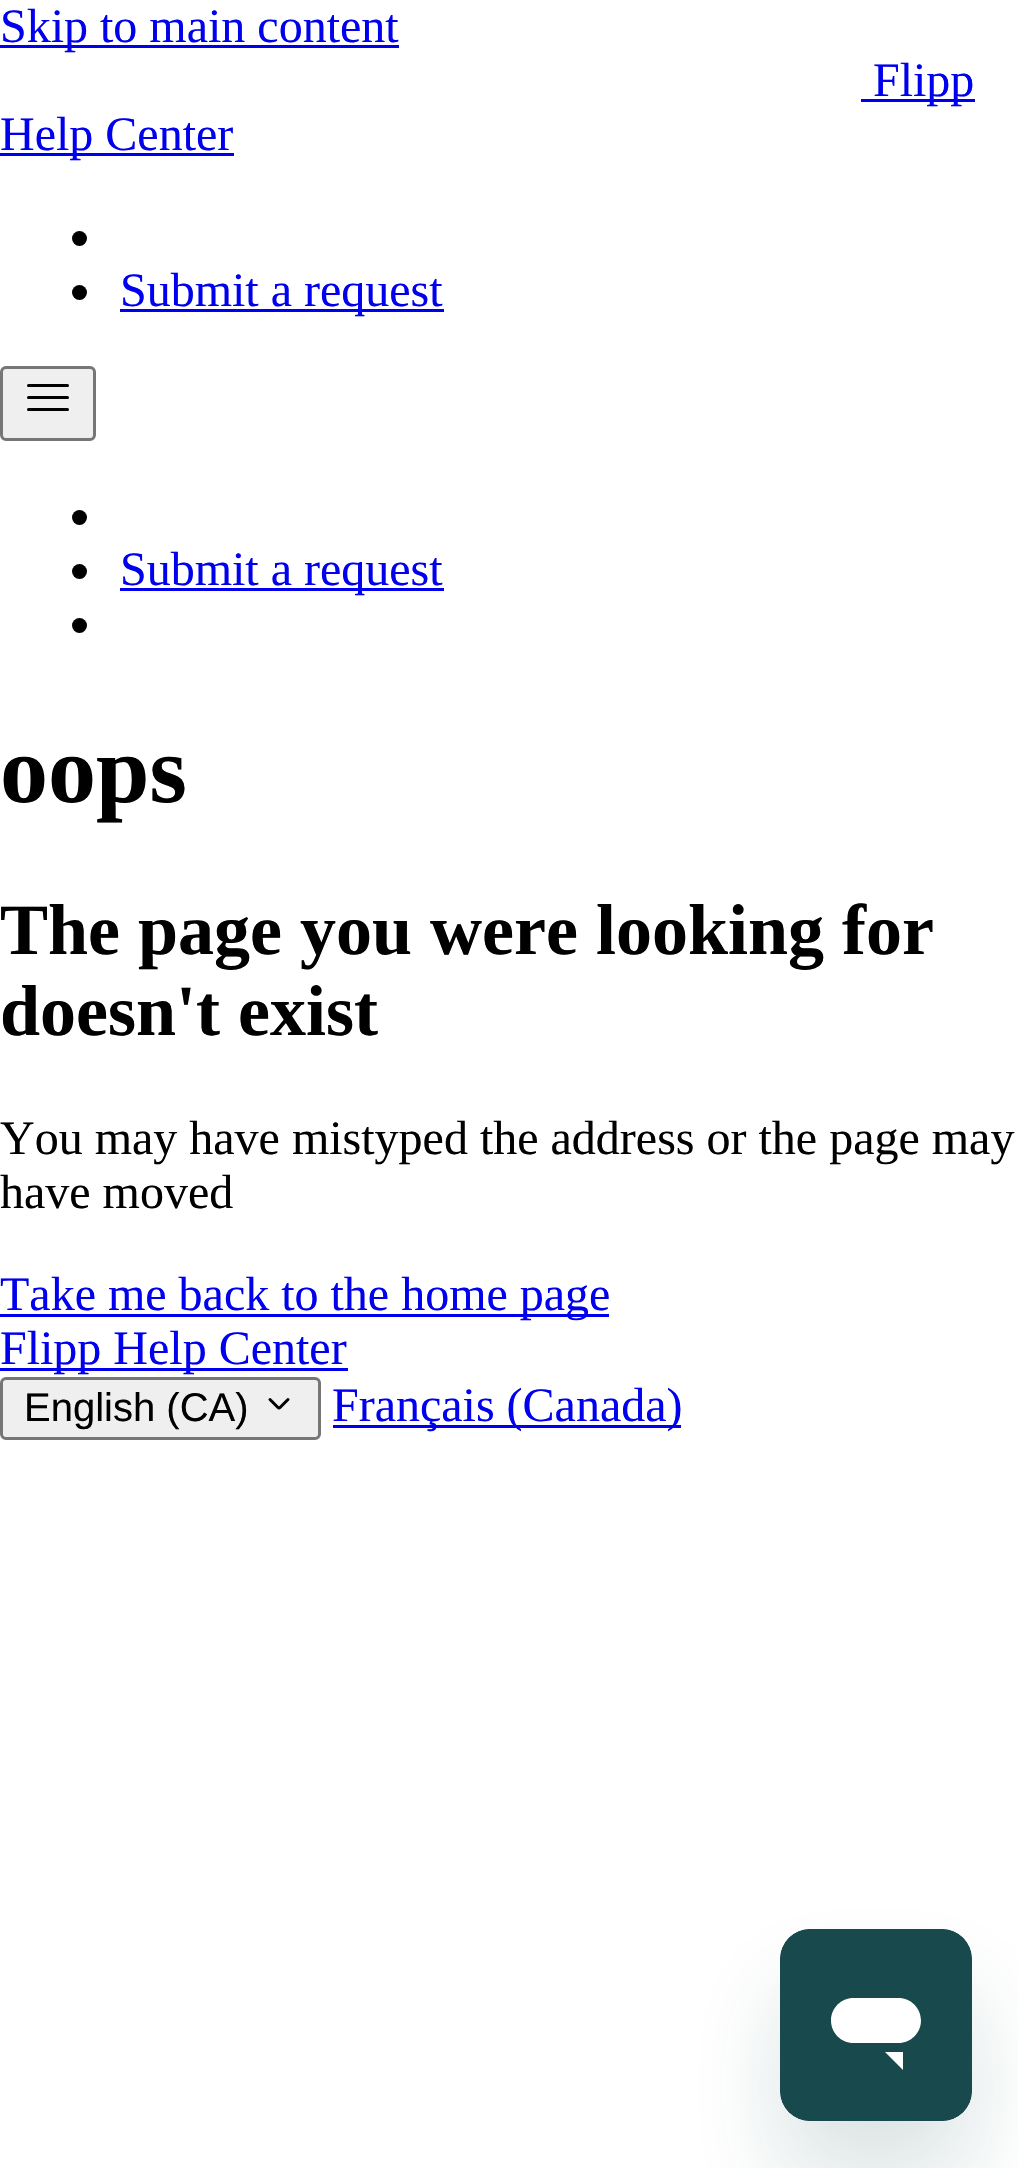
#include "include/core/SkBlurTypes.h"
#include "include/core/SkCanvas.h"
#include "include/core/SkData.h"
#include "include/core/SkFont.h"
#include "include/core/SkFontMgr.h"
#include "include/core/SkImage.h"
#include "include/core/SkMaskFilter.h"
#include "include/core/SkPaint.h"
#include "include/core/SkPathBuilder.h"
#include "include/core/SkTextBlob.h"
#include "include/effects/SkDashPathEffect.h"
#include "include/effects/SkGradientShader.h"
#include "include/utils/SkParsePath.h"

extern sk_sp<SkFontMgr> fontMgr;

static SkFont font(const char* family, int weight, float size, bool italic = false) {
    SkFontStyle style(weight, SkFontStyle::kNormal_Width,
        italic ? SkFontStyle::kItalic_Slant : SkFontStyle::kUpright_Slant);
    SkFont result(fontMgr->matchFamilyStyle(family, style), size);
    result.setSubpixel(true);
    return result;
}

static void drawLabel(SkCanvas* canvas, const char* s, float x, float y, const SkFont& font, SkColor color) {
    SkPaint ink(SkColor4f::FromColor(color));
    ink.setAntiAlias(true);
    canvas->drawString(s, x, y, font, ink);
}

static void fillRect(SkCanvas* canvas, float x, float y, float w, float h, SkColor color) {
    SkPaint ink(SkColor4f::FromColor(color));
    ink.setAntiAlias(true);
    canvas->drawRect(SkRect::MakeXYWH(x, y, w, h), ink);
}

static void drawPhoto(SkCanvas* canvas, const char* path, float x, float y, float w, float h) {
    auto image = SkImages::DeferredFromEncodedData(SkData::MakeFromFileName(path));
    canvas->drawImageRect(image, SkRect::MakeXYWH(x, y, w, h), SkSamplingOptions());
}

static SkPath parsePath(const char* data, bool evenOdd = false) {
    SkPath result = *SkParsePath::FromSVGString(data);
    if (evenOdd) result.setFillType(SkPathFillType::kEvenOdd);
    return result;
}

void draw(SkCanvas* canvas) {
    SkPaint paint;
    paint.setAntiAlias(true);
    canvas->clear(0xFFFFFFFF);
    fillRect(canvas, 0, 45, 399, 3, 0xFF0000EE);
    SkFont font1 = font("Liberation Serif", 400, 48);
    drawLabel(canvas, "Skip to main content", 0, 42, font1, 0xFF0000EE);
    fillRect(canvas, 861, 99, 114, 3, 0xFF0000EE);
    drawLabel(canvas, "Flipp", 873, 96, font1, 0xFF0000EE);
    fillRect(canvas, 0, 153, 234, 3, 0xFF0000EE);
    drawLabel(canvas, "Help Center", 0, 150, font1, 0xFF0000EE);
    paint.setColor(0xFF000000);
    canvas->drawCircle(79.5f, 238.5f, 7.5f, paint);
    canvas->drawCircle(79.5f, 292.5f, 7.5f, paint);
    fillRect(canvas, 120, 309, 324, 3, 0xFF0000EE);
    drawLabel(canvas, "Submit a request", 120, 306, font1, 0xFF0000EE);
    paint.setColor(0xFFEFEFEF);
    canvas->drawRoundRect(SkRect::MakeXYWH(1.5f, 367.5f, 93, 72), 4.5f, 4.5f, paint);
    paint.setStroke(true);
    paint.setStrokeWidth(3);
    paint.setColor(0xFF767676);
    canvas->drawRoundRect(SkRect::MakeXYWH(1.5f, 367.5f, 93, 72), 4.5f, 4.5f, paint);
    paint.setStrokeCap(SkPaint::kRound_Cap);
    paint.setColor(0xFF000000);
    canvas->drawPath(parsePath("M28.5 385.5H67.5M28.5 397.5H67.5M28.5 409.5H67.5"), paint);
    paint.setStroke(false);
    canvas->drawCircle(79.5f, 517.5f, 7.5f, paint);
    canvas->drawCircle(79.5f, 571.5f, 7.5f, paint);
    fillRect(canvas, 120, 588, 324, 3, 0xFF0000EE);
    drawLabel(canvas, "Submit a request", 120, 585, font1, 0xFF0000EE);
    canvas->drawCircle(79.5f, 625.5f, 7.5f, paint);
    SkFont font2 = font("Liberation Serif", 700, 96);
    drawLabel(canvas, "oops", 0, 802, font2, 0xFF000000);
    SkFont font3 = font("Liberation Serif", 700, 72);
    drawLabel(canvas, "The page you were looking for", 0, 954, font3, 0xFF000000);
    drawLabel(canvas, "doesn't exist", 0, 1035, font3, 0xFF000000);
    drawLabel(canvas, "You may have mistyped the address or the page may", 0, 1154, font1, 0xFF000000);
    drawLabel(canvas, "have moved", 0, 1208, font1, 0xFF000000);
    fillRect(canvas, 0, 1314, 609, 3, 0xFF0000EE);
    drawLabel(canvas, "Take me back to the home page", 0, 1310, font1, 0xFF0000EE);
    fillRect(canvas, 0, 1368, 348, 3, 0xFF0000EE);
    drawLabel(canvas, "Flipp Help Center", 0, 1364, font1, 0xFF0000EE);
    paint.setColor(0xFFEFEFEF);
    canvas->drawRoundRect(SkRect::MakeXYWH(1.5f, 1378.5f, 318, 60), 4.5f, 4.5f, paint);
    paint.setStroke(true);
    paint.setStrokeCap(SkPaint::kButt_Cap);
    paint.setColor(0xFF767676);
    canvas->drawRoundRect(SkRect::MakeXYWH(1.5f, 1378.5f, 318, 60), 4.5f, 4.5f, paint);
    SkFont font4 = font("Liberation Sans", 400, 40);
    drawLabel(canvas, "English (CA)", 24, 1421, font4, 0xFF000000);
    paint.setStrokeCap(SkPaint::kRound_Cap);
    paint.setColor(0xFF000000);
    canvas->drawPath(parsePath("M270 1399.5L278 1407.5C278.5 1408 279.5 1408 280 1407.5L288 1399.5"), paint);
    fillRect(canvas, 333, 1425, 348, 3, 0xFF0000EE);
    drawLabel(canvas, "Français (Canada)", 332, 1421, font1, 0xFF0000EE);
    paint.setStroke(false);
    paint.setColor(0x2617494D);
    paint.setMaskFilter(SkMaskFilter::MakeBlur(kNormal_SkBlurStyle, 45));
    canvas->drawRoundRect(SkRect::MakeXYWH(780, 1989, 192, 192), 30, 30, paint);
    paint.setMaskFilter(nullptr);
    drawPhoto(canvas, "assets/img1.png", 780, 1929, 192, 192);
}
